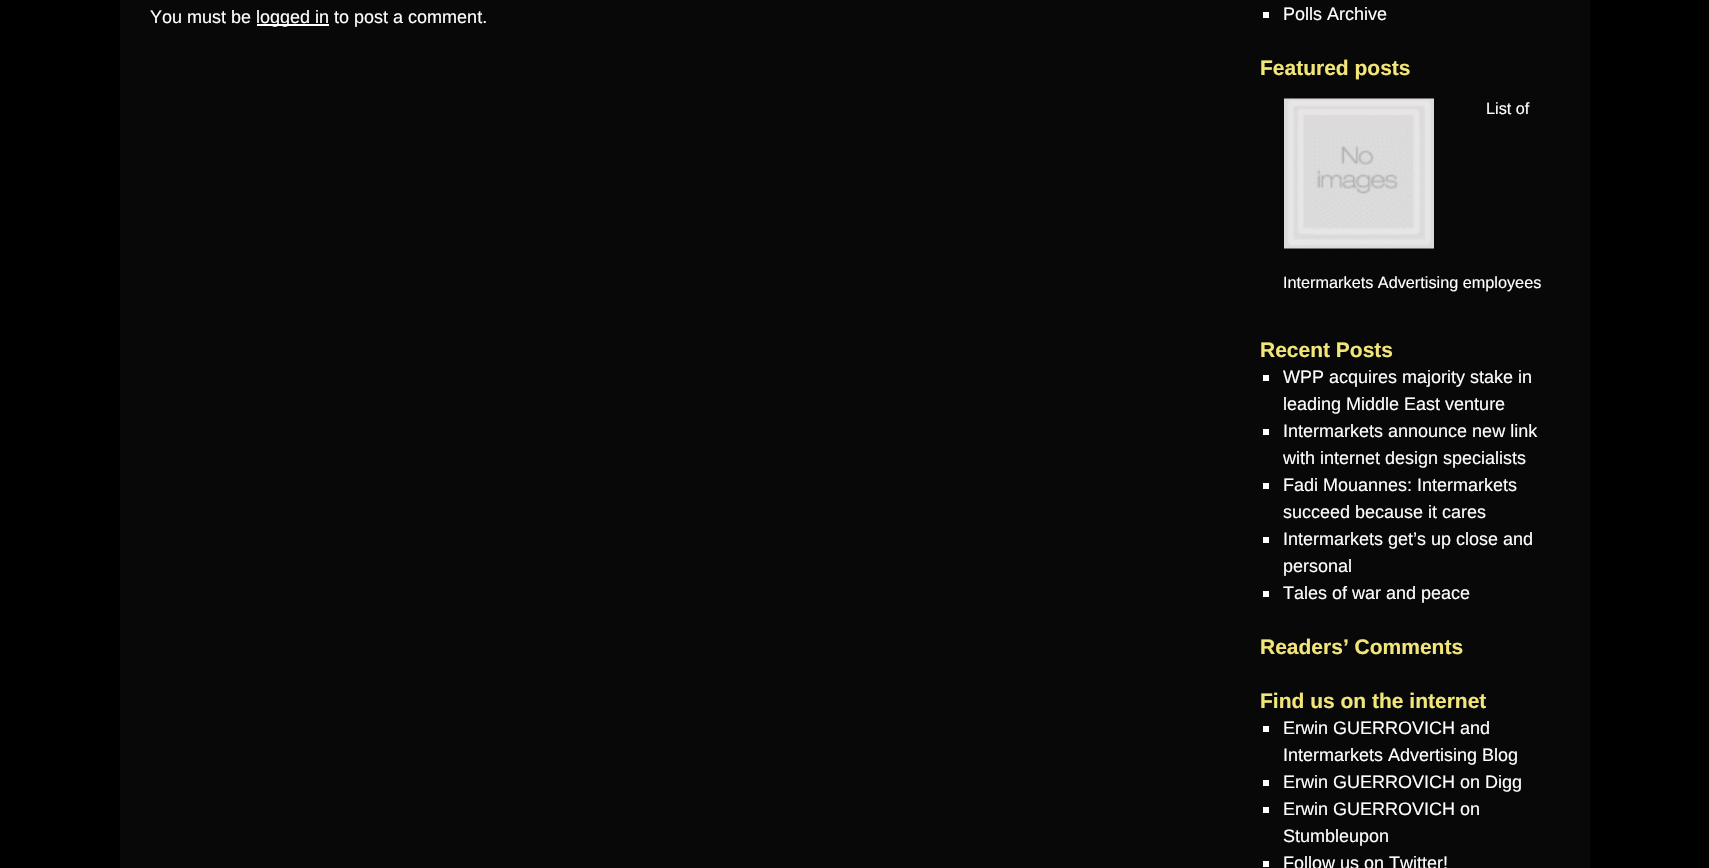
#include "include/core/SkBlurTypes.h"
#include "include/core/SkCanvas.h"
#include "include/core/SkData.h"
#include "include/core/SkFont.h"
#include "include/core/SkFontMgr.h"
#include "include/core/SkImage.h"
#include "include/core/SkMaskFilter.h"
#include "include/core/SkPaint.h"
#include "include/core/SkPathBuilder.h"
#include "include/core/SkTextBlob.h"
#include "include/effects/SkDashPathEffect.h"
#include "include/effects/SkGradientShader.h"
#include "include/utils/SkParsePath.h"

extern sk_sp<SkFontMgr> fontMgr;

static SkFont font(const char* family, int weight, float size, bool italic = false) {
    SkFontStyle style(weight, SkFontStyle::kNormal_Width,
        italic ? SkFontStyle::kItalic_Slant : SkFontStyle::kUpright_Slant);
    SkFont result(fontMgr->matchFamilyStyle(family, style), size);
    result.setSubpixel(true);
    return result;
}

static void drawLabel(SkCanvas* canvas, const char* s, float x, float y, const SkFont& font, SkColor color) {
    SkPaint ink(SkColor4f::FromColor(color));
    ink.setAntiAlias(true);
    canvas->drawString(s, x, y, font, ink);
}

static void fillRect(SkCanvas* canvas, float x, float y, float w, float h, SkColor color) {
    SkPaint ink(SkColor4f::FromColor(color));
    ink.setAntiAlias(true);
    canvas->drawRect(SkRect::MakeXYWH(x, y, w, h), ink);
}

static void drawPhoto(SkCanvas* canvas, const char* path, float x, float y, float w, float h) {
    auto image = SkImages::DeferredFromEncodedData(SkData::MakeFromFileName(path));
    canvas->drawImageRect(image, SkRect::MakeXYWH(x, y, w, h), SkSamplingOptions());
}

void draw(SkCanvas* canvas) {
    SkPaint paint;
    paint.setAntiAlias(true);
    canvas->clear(0xFF000000);
    fillRect(canvas, 120, 0, 1470, 868, 0xFF080808);
    SkFont font1 = font("Liberation Sans", 400, 18);
    drawLabel(canvas, "You must be", 150, 23, font1, 0xFFFFFFFF);
    fillRect(canvas, 257, 24, 72, 2, 0xFFFFFFFF);
    drawLabel(canvas, "logged in to post a comment.", 256, 23, font1, 0xFFFFFFFF);
    fillRect(canvas, 1263, 12, 6, 6, 0xFFFFFFFF);
    drawLabel(canvas, "Polls Archive", 1283, 20, font1, 0xFFFFFFFF);
    SkFont font2 = font("Liberation Sans", 700, 21);
    drawLabel(canvas, "Featured posts", 1260, 75, font2, 0xFFF2E678);
    drawPhoto(canvas, "assets/img1.png", 1284, 98, 150, 151);
    SkFont font3 = font("Liberation Sans", 400, 16.25f);
    drawLabel(canvas, "List of", 1486, 114, font3, 0xFFFFFFFF);
    drawLabel(canvas, "Intermarkets Advertising employees", 1283, 288, font3, 0xFFFFFFFF);
    drawLabel(canvas, "Recent Posts", 1260, 357, font2, 0xFFF2E678);
    fillRect(canvas, 1263, 375, 6, 6, 0xFFFFFFFF);
    drawLabel(canvas, "WPP acquires majority stake in", 1283, 383, font1, 0xFFFFFFFF);
    drawLabel(canvas, "leading Middle East venture", 1283, 410, font1, 0xFFFFFFFF);
    fillRect(canvas, 1263, 429, 6, 6, 0xFFFFFFFF);
    drawLabel(canvas, "Intermarkets announce new link", 1283, 437, font1, 0xFFFFFFFF);
    drawLabel(canvas, "with internet design specialists", 1283, 464, font1, 0xFFFFFFFF);
    fillRect(canvas, 1263, 483, 6, 6, 0xFFFFFFFF);
    drawLabel(canvas, "Fadi Mouannes: Intermarkets", 1283, 491, font1, 0xFFFFFFFF);
    drawLabel(canvas, "succeed because it cares", 1283, 518, font1, 0xFFFFFFFF);
    fillRect(canvas, 1263, 537, 6, 6, 0xFFFFFFFF);
    drawLabel(canvas, "Intermarkets get’s up close and", 1283, 545, font1, 0xFFFFFFFF);
    drawLabel(canvas, "personal", 1283, 572, font1, 0xFFFFFFFF);
    fillRect(canvas, 1263, 591, 6, 6, 0xFFFFFFFF);
    drawLabel(canvas, "Tales of war and peace", 1283, 599, font1, 0xFFFFFFFF);
    drawLabel(canvas, "Readers’ Comments", 1260, 654, font2, 0xFFF2E678);
    drawLabel(canvas, "Find us on the internet", 1260, 708, font2, 0xFFF2E678);
    fillRect(canvas, 1263, 726, 6, 6, 0xFFFFFFFF);
    drawLabel(canvas, "Erwin GUERROVICH and", 1283, 734, font1, 0xFFFFFFFF);
    drawLabel(canvas, "Intermarkets Advertising Blog", 1283, 761, font1, 0xFFFFFFFF);
    fillRect(canvas, 1263, 780, 6, 6, 0xFFFFFFFF);
    drawLabel(canvas, "Erwin GUERROVICH on Digg", 1283, 788, font1, 0xFFFFFFFF);
    fillRect(canvas, 1263, 807, 6, 6, 0xFFFFFFFF);
    drawLabel(canvas, "Erwin GUERROVICH on", 1283, 815, font1, 0xFFFFFFFF);
    drawLabel(canvas, "Stumbleupon", 1283, 842, font1, 0xFFFFFFFF);
    fillRect(canvas, 1263, 861, 6, 6, 0xFFFFFFFF);
    drawLabel(canvas, "Follow us on Twitter!", 1283, 869, font1, 0xFFFFFFFF);
}
